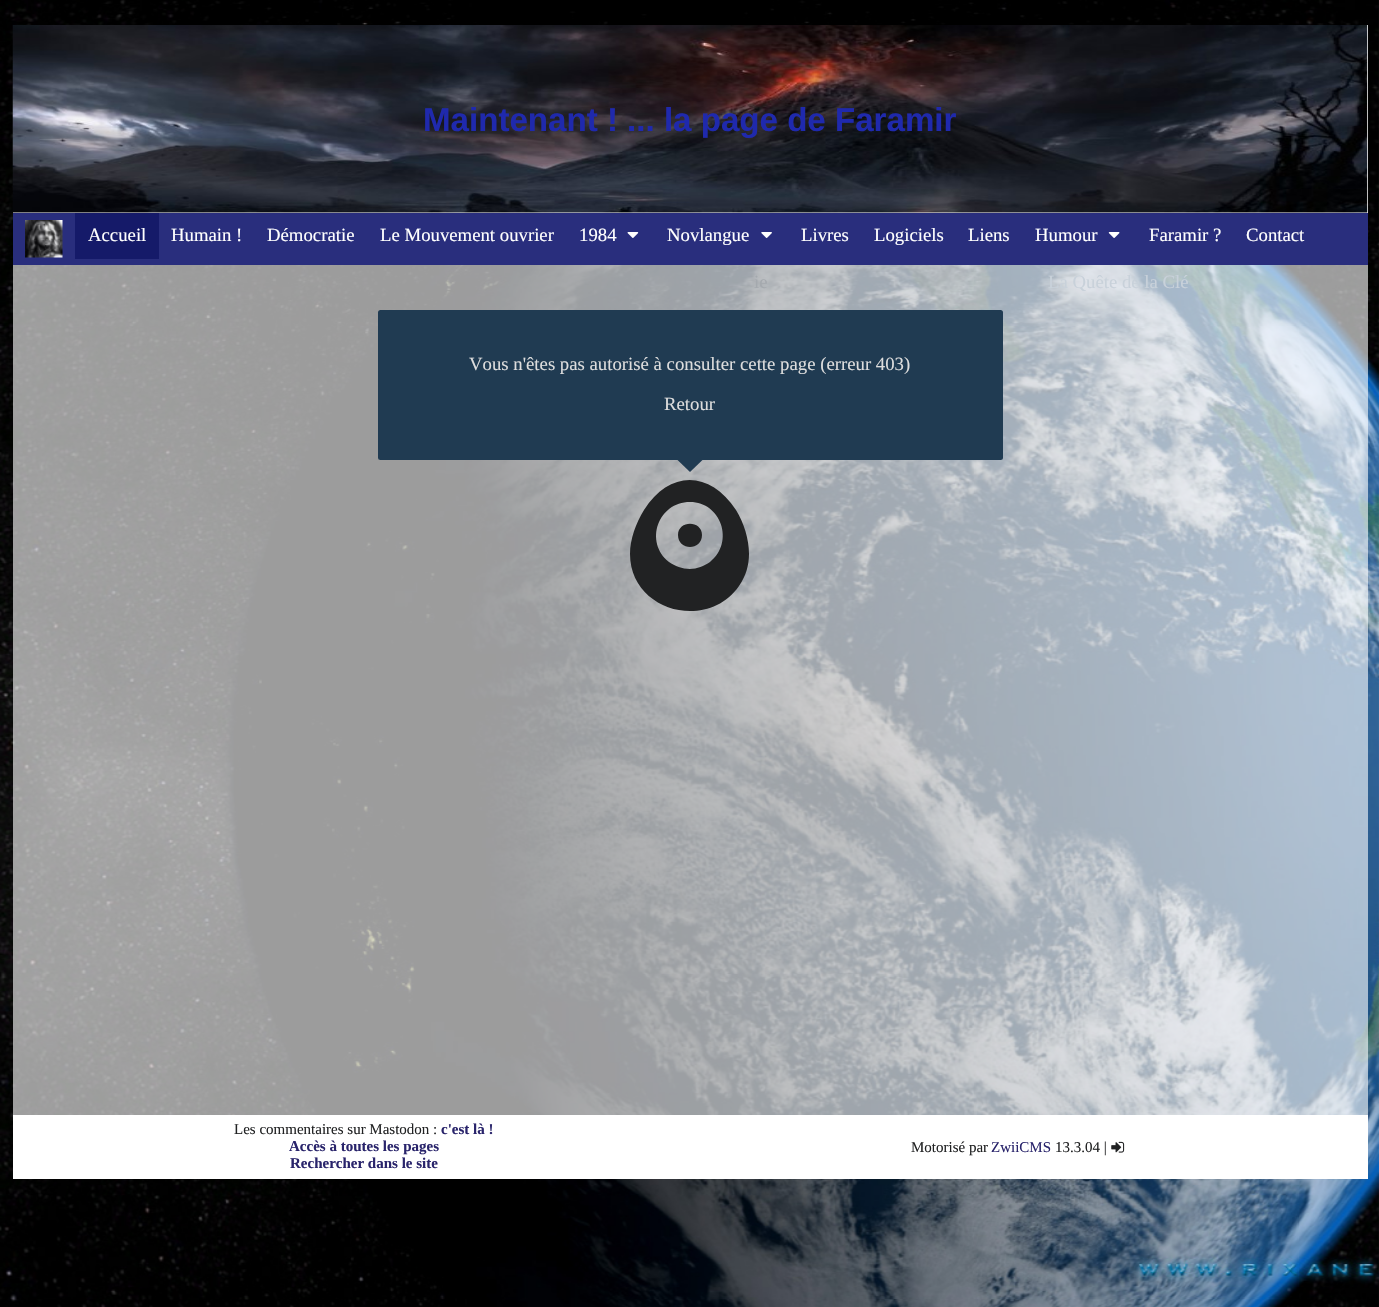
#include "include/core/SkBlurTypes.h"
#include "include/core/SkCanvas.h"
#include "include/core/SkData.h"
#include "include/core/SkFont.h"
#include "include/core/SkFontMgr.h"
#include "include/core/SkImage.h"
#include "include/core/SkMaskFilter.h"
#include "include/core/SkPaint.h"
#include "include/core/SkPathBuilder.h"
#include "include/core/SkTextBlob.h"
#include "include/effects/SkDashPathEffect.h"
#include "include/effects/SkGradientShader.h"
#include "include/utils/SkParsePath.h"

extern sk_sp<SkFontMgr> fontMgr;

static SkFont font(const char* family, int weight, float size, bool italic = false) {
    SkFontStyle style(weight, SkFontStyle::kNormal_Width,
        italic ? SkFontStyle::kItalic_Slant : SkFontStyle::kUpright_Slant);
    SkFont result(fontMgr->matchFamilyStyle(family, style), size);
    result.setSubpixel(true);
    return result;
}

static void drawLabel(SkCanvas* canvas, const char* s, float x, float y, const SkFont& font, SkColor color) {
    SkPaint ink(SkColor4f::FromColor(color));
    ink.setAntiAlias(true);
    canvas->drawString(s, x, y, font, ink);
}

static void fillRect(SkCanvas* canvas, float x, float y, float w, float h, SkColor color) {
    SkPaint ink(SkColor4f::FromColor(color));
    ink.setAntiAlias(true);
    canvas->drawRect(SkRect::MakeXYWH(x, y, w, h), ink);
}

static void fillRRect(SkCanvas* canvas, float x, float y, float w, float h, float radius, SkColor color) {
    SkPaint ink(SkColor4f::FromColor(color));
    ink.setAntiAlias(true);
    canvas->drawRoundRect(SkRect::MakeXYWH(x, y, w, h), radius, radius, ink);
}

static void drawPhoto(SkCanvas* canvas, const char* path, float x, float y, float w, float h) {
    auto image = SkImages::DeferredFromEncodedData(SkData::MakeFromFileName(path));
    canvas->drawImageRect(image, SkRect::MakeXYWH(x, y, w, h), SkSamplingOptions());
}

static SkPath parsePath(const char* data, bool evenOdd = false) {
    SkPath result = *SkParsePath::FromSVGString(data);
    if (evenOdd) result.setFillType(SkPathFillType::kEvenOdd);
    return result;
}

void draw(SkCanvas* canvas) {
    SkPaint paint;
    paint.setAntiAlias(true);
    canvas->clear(0xFFFFFFFF);
    drawPhoto(canvas, "assets/img1.png", 0, 0, 1379, 1307);
    SkFont font1 = font("Liberation Serif", 400, 18.75f);
    drawLabel(canvas, "ie", 754, 288, font1, 0xFF14202D);
    drawLabel(canvas, "La Quête de la Clé", 1048, 288, font1, 0xFF71889F);
    fillRect(canvas, 13, 265, 1355, 850, 0x9CFFFFFF);
    fillRect(canvas, 13, 25, 1355, 188, 0xFFFFFFFF);
    drawPhoto(canvas, "assets/img2.png", 12, 25, 1356, 188);
    SkFont font2 = font("Liberation Sans", 700, 33.1f);
    drawLabel(canvas, "Maintenant ! ... la page de Faramir", 423, 131, font2, 0xFF1F29AD);
    fillRect(canvas, 13, 213, 1355, 52, 0xFF292E7D);
    drawPhoto(canvas, "assets/img3.png", 25, 220, 38, 38);
    fillRect(canvas, 75, 213, 84, 46, 0xFF151A69);
    drawLabel(canvas, "Accueil", 88, 241, font1, 0xFFFFFFFF);
    drawLabel(canvas, "Humain !", 171, 241, font1, 0xFFFFFFFF);
    drawLabel(canvas, "Démocratie", 267, 241, font1, 0xFFFFFFFF);
    drawLabel(canvas, "Le Mouvement ouvrier", 380, 241, font1, 0xFFFFFFFF);
    drawLabel(canvas, "1984", 579, 241, font1, 0xFFFFFFFF);
    drawPhoto(canvas, "assets/img4.png", 627, 232, 12, 6);
    drawLabel(canvas, "Novlangue", 667, 241, font1, 0xFFFFFFFF);
    drawPhoto(canvas, "assets/img5.png", 761, 232, 11, 6);
    drawLabel(canvas, "Livres", 801, 241, font1, 0xFFFFFFFF);
    drawLabel(canvas, "Logiciels", 874, 241, font1, 0xFFFFFFFF);
    drawLabel(canvas, "Liens", 968, 241, font1, 0xFFFFFFFF);
    drawLabel(canvas, "Humour", 1035, 241, font1, 0xFFFFFFFF);
    drawPhoto(canvas, "assets/img6.png", 1108, 232, 12, 6);
    drawLabel(canvas, "Faramir ?", 1149, 241, font1, 0xFFFFFFFF);
    drawLabel(canvas, "Contact", 1246, 241, font1, 0xFFFFFFFF);
    fillRRect(canvas, 378, 310, 625, 150, 2.5f, 0xFF203B52);
    drawLabel(canvas, "Vous n'êtes pas autorisé à consulter cette page (erreur 403)", 469, 370, font1, 0xFFDDDDDD);
    drawLabel(canvas, "Retour", 664, 410, font1, 0xFFDDDDDD);
    paint.setColor(0xFF203B52);
    canvas->drawPath(parsePath("M665 448H715L690 472Z"), paint);
    paint.setColor(0xFF212223);
    canvas->drawPath(parsePath("M749 554C749 565 746 576 739 586C707 632 630 611 630 554C630 539 636 523 644 510C669 470 710 470 736 510C744 523 749 539 749 554ZM690 502C658 502 644 542 669 562C675 566 682 569 690 569C697 569 704 566 710 562C735 542 721 502 690 502ZM702 535C702 551 678 551 678 535C678 520 702 520 702 535Z"), paint);
    fillRect(canvas, 13, 1115, 1355, 64, 0xFFFFFFFF);
    SkFont font3 = font("Liberation Serif", 400, 15);
    drawLabel(canvas, "Les commentaires sur Mastodon :", 234, 1134, font3, 0xFF212223);
    SkFont font4 = font("Liberation Serif", 700, 15);
    drawLabel(canvas, "c'est là !", 441, 1134, font4, 0xFF29246B);
    drawLabel(canvas, "Accès à toutes les pages", 289, 1151, font4, 0xFF29246B);
    drawLabel(canvas, "Rechercher dans le site", 290, 1168, font4, 0xFF29246B);
    drawLabel(canvas, "Motorisé par", 911, 1152, font3, 0xFF212223);
    drawLabel(canvas, "ZwiiCMS", 991, 1152, font3, 0xFF29246B);
    drawLabel(canvas, "13.3.04 |", 1055, 1152, font3, 0xFF212223);
    drawPhoto(canvas, "assets/img7.png", 1111, 1141, 14, 12);
}
